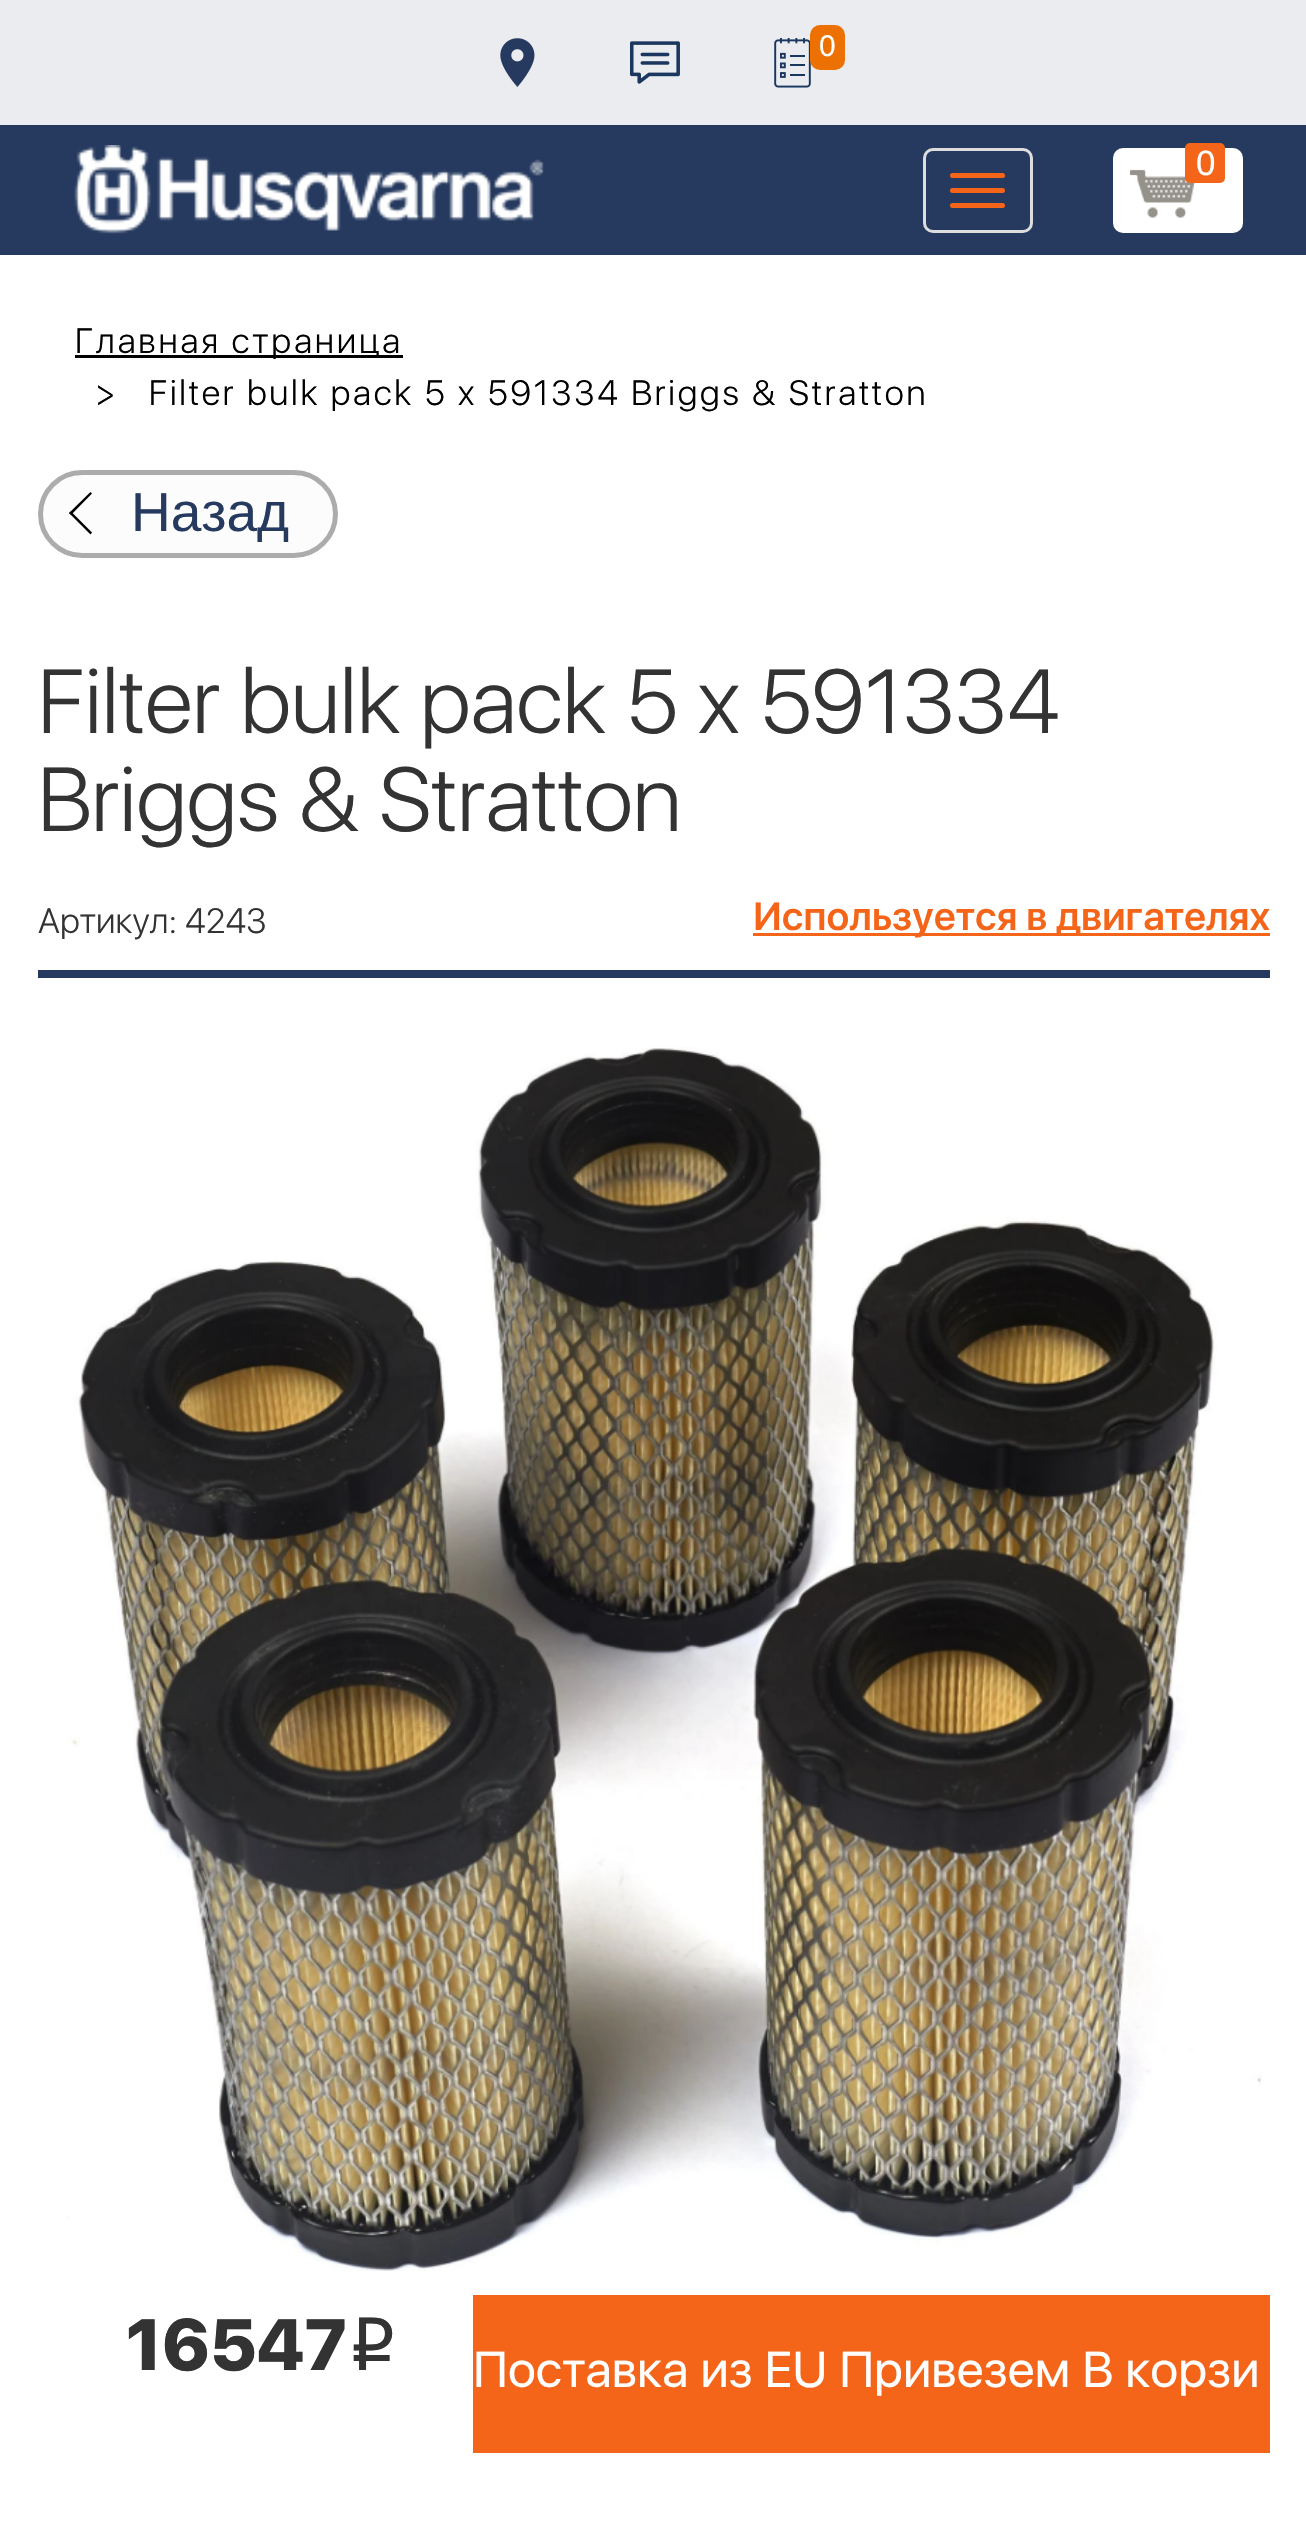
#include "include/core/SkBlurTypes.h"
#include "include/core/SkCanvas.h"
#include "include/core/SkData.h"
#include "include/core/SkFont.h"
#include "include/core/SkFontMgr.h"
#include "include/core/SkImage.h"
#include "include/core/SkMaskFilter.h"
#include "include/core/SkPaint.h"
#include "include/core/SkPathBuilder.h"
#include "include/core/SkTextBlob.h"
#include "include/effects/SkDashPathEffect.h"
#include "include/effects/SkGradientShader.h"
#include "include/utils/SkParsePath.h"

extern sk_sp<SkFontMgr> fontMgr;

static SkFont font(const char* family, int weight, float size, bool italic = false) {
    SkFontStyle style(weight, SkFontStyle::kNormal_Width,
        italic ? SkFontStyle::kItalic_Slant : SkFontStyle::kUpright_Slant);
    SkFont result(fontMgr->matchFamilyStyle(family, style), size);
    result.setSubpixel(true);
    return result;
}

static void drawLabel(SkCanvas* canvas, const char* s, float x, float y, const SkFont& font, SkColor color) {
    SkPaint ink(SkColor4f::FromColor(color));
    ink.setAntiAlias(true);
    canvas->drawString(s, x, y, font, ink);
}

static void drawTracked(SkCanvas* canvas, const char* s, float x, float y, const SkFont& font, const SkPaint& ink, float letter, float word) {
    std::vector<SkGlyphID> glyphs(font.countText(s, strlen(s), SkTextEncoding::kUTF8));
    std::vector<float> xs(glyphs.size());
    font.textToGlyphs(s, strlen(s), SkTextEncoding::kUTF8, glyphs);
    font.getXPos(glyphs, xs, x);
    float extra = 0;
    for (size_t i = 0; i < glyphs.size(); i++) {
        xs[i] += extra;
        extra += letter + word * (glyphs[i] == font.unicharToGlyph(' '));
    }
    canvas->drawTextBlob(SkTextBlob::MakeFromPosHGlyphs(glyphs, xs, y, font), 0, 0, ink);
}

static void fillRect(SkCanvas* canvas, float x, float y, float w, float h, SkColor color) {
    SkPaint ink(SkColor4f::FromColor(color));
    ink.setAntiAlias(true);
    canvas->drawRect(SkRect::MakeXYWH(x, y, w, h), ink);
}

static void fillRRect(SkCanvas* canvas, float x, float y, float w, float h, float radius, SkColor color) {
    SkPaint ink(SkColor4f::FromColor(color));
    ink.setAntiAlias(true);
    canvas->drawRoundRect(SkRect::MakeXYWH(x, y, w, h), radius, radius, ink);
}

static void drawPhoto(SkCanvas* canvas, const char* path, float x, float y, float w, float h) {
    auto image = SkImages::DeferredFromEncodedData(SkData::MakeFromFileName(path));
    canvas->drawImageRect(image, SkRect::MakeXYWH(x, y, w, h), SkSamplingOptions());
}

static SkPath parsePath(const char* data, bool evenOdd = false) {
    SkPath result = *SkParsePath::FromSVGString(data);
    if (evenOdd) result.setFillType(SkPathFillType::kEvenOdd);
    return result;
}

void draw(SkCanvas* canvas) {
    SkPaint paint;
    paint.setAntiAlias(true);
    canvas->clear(0xFFFFFFFF);
    fillRect(canvas, 0, 0, 1306, 125, 0xFFEAECF0);
    drawPhoto(canvas, "assets/img1.png", 500, 38, 35, 49);
    drawPhoto(canvas, "assets/img2.png", 630, 41, 50, 43);
    drawPhoto(canvas, "assets/img3.png", 774, 38, 37, 50);
    fillRRect(canvas, 810, 25, 35, 45, 10, 0xFFED7102);
    SkFont font1 = font("Liberation Sans", 400, 30);
    drawLabel(canvas, "0", 819, 56, font1, 0xFFFFFFFF);
    fillRect(canvas, 0, 125, 1306, 130, 0xFF263A5F);
    drawPhoto(canvas, "assets/img4.png", 74, 145, 470, 89);
    paint.setStroke(true);
    paint.setStrokeWidth(3);
    paint.setColor(0xFFDDDDDD);
    canvas->drawRoundRect(SkRect::MakeXYWH(924.5f, 149.5f, 107, 82), 8.5f, 8.5f, paint);
    fillRRect(canvas, 950, 173, 55, 5, 2.5f, 0xFFF4651A);
    fillRRect(canvas, 950, 188, 55, 5, 2.5f, 0xFFF4651A);
    fillRRect(canvas, 950, 203, 55, 5, 2.5f, 0xFFF4651A);
    fillRRect(canvas, 1113, 148, 130, 85, 10, 0xFFFFFFFF);
    drawPhoto(canvas, "assets/img5.png", 1130, 169, 65, 49);
    fillRRect(canvas, 1185, 143, 40, 40, 5, 0xFFF4651A);
    SkFont font2 = font("Liberation Sans", 400, 35);
    drawLabel(canvas, "0", 1196, 175, font2, 0xFFFFFFFF);
    fillRect(canvas, 75, 355, 328, 3, 0xFF000000);
    SkFont font3 = font("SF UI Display", 300, 35);
    paint.setStroke(false);
    paint.setColor(0xFF000000);
    drawTracked(canvas, "Главная страница", 75, 353, font3, paint, 2.75f, 0);
    drawTracked(canvas, ">", 95, 405, font3, paint, 2.75f, 0);
    drawTracked(canvas, "Filter bulk pack 5 x 591334 Briggs & Stratton", 149, 405, font3, paint, 2.75f, 0);
    paint.setColor(0xFFFCFCFC);
    canvas->drawRoundRect(SkRect::MakeXYWH(40.5f, 472.5f, 295, 83), 41.5f, 41.5f, paint);
    paint.setStroke(true);
    paint.setStrokeWidth(5);
    paint.setColor(0xFFACACAC);
    canvas->drawRoundRect(SkRect::MakeXYWH(40.5f, 472.5f, 295, 83), 41.5f, 41.5f, paint);
    paint.setStroke(false);
    paint.setColor(0xFF000000);
    canvas->drawPath(parsePath("M69 513L90.5 492L92 493.5L71 515Z"), paint);
    canvas->drawPath(parsePath("M69 513L71 511.5L92 532.5L90.5 534.5Z"), paint);
    SkFont font4 = font("Liberation Sans", 400, 55);
    drawLabel(canvas, "Назад", 131, 531, font4, 0xFF263A5F);
    SkFont font5 = font("SF UI Display", 300, 90);
    drawLabel(canvas, "Filter bulk pack 5 x 591334", 38, 733, font5, 0xFF333333);
    drawLabel(canvas, "Briggs & Stratton", 38, 831, font5, 0xFF333333);
    drawLabel(canvas, "Артикул: 4243", 38, 933, font3, 0xFF333333);
    fillRect(canvas, 753, 933, 517, 3, 0xFFF4651A);
    SkFont font6 = font("SF UI Display", 600, 40);
    drawLabel(canvas, "Используется в двигателях", 753, 930, font6, 0xFFF4651A);
    fillRect(canvas, 38, 970, 1232, 8, 0xFF263A5F);
    drawPhoto(canvas, "assets/img6.png", 66, 1047, 1196, 1224);
    SkFont font7 = font("SF UI Display", 900, 75);
    drawLabel(canvas, "16547", 126, 2370, font7, 0xFF333333);
    SkFont font8 = font("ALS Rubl", 400, 75);
    drawLabel(canvas, "i", 347, 2370, font8, 0xFF333333);
    fillRect(canvas, 473, 2295, 797, 158, 0xFFF4651A);
    SkFont font9 = font("SF UI Display", 400, 50);
    drawLabel(canvas, "Поставка из EU Привезем В корзи", 473, 2387, font9, 0xFFFFFFFF);
}
